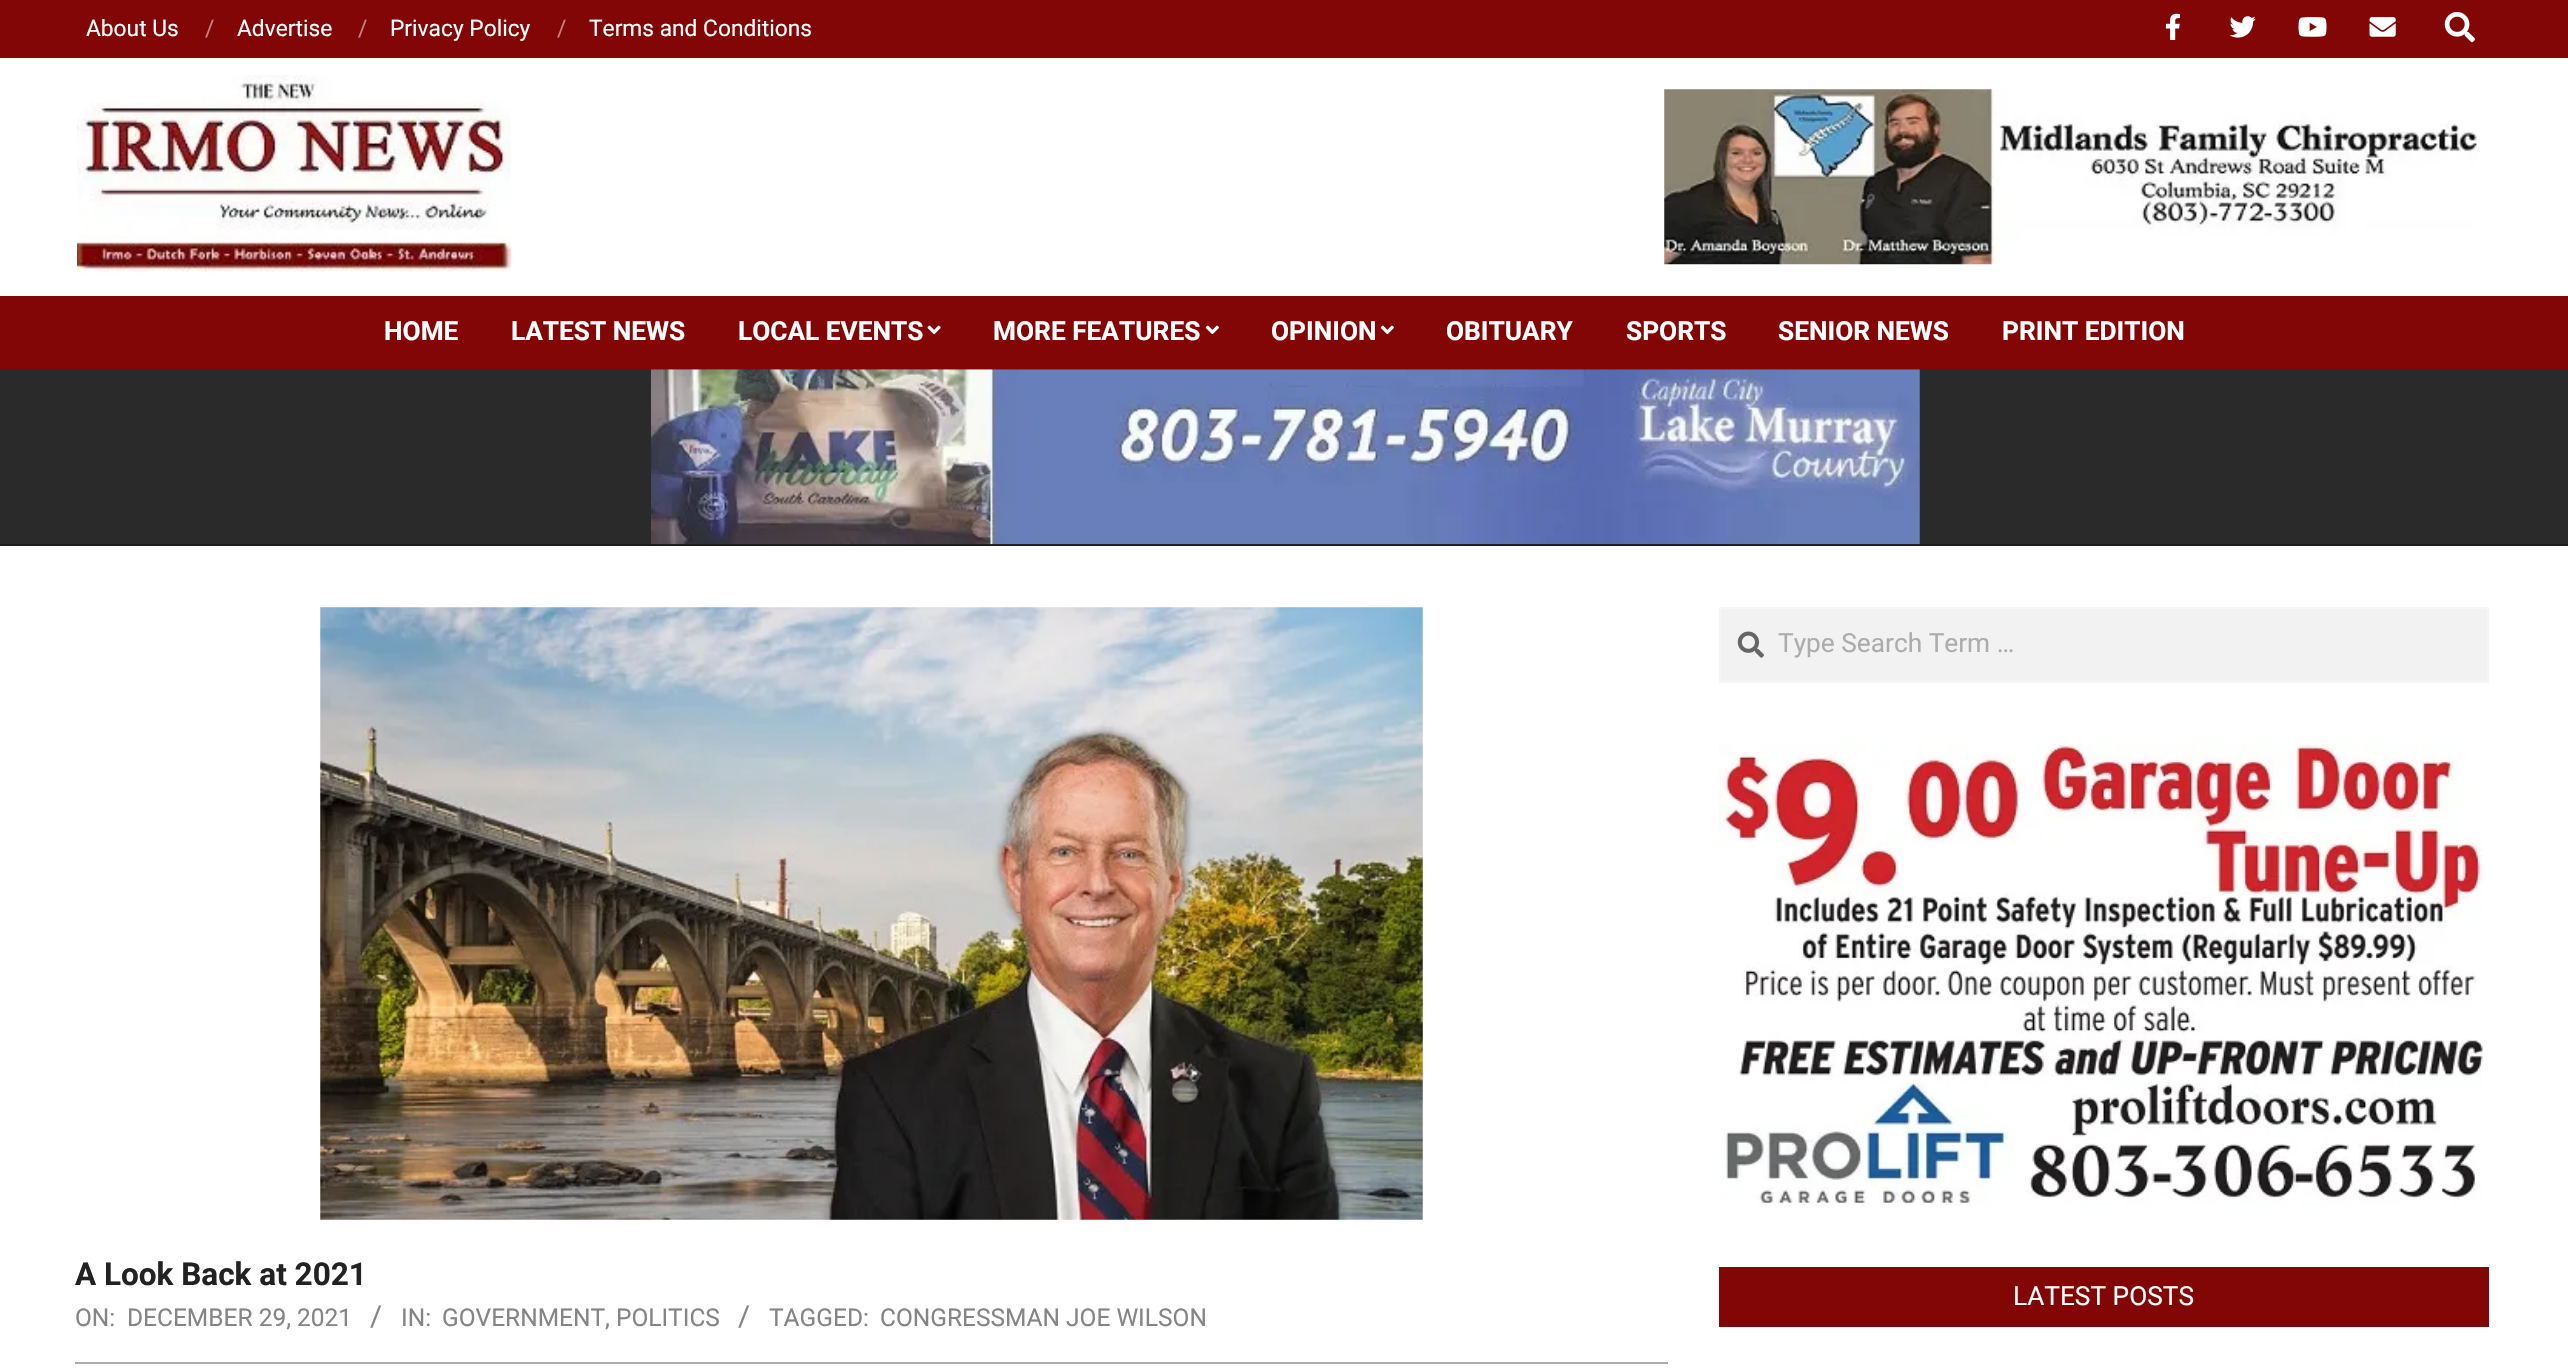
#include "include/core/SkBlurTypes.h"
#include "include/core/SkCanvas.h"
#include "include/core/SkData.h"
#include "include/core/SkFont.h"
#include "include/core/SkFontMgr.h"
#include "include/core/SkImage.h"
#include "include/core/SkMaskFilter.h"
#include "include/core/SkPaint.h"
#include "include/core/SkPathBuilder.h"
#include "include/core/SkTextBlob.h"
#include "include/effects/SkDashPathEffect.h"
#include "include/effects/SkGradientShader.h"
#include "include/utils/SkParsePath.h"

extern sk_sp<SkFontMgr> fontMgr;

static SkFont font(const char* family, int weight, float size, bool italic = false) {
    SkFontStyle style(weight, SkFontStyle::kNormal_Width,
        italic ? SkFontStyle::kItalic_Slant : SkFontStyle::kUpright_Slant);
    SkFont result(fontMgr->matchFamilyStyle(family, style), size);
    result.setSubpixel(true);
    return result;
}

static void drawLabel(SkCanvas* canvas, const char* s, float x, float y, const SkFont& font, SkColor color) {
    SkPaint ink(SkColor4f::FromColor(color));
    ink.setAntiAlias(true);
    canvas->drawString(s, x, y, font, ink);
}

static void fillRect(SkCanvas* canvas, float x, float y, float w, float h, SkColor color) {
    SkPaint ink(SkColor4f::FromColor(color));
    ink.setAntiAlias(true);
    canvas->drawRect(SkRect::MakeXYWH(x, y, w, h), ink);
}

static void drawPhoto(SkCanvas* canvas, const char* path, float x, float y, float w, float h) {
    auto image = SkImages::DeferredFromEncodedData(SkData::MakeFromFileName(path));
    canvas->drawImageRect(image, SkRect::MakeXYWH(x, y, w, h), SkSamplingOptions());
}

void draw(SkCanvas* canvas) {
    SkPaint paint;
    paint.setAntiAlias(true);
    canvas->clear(0xFFFFFFFF);
    fillRect(canvas, 0, 0, 2568, 58, 0xFF820606);
    SkFont font1 = font("Roboto", 400, 22.75f);
    drawLabel(canvas, "About Us", 86, 36, font1, 0xFFFFFFFF);
    drawLabel(canvas, "/", 205, 36, font1, 0xFFC18383);
    drawLabel(canvas, "Advertise", 237, 36, font1, 0xFFFFFFFF);
    drawLabel(canvas, "/", 358, 36, font1, 0xFFC18383);
    drawLabel(canvas, "Privacy Policy", 390, 36, font1, 0xFFFFFFFF);
    drawLabel(canvas, "/", 557, 36, font1, 0xFFC18383);
    drawLabel(canvas, "Terms and Conditions", 589, 36, font1, 0xFFFFFFFF);
    drawPhoto(canvas, "assets/img1.png", 2165, 13, 15, 27);
    drawPhoto(canvas, "assets/img2.png", 2229, 16, 27, 22);
    drawPhoto(canvas, "assets/img3.png", 2298, 17, 29, 20);
    drawPhoto(canvas, "assets/img4.png", 2369, 17, 27, 20);
    drawPhoto(canvas, "assets/img5.png", 2444, 12, 32, 31);
    drawPhoto(canvas, "assets/img6.png", 77, 75, 434, 198);
    drawPhoto(canvas, "assets/img7.png", 1664, 89, 813, 176);
    fillRect(canvas, 0, 296, 2568, 73, 0xFF820606);
    SkFont font2 = font("Roboto", 700, 26.25f);
    drawLabel(canvas, "HOME", 384, 340, font2, 0xFFFFFFFF);
    drawLabel(canvas, "LATEST NEWS", 511, 340, font2, 0xFFFFFFFF);
    drawLabel(canvas, "LOCAL EVENTS", 738, 340, font2, 0xFFFFFFFF);
    drawPhoto(canvas, "assets/img8.png", 927, 325, 14, 10);
    drawLabel(canvas, "MORE FEATURES", 993, 340, font2, 0xFFFFFFFF);
    drawPhoto(canvas, "assets/img9.png", 1205, 325, 14, 10);
    drawLabel(canvas, "OPINION", 1271, 340, font2, 0xFFFFFFFF);
    drawPhoto(canvas, "assets/img9.png", 1380, 325, 14, 10);
    drawLabel(canvas, "OBITUARY", 1446, 340, font2, 0xFFFFFFFF);
    drawLabel(canvas, "SPORTS", 1626, 340, font2, 0xFFFFFFFF);
    drawLabel(canvas, "SENIOR NEWS", 1778, 340, font2, 0xFFFFFFFF);
    drawLabel(canvas, "PRINT EDITION", 2002, 340, font2, 0xFFFFFFFF);
    fillRect(canvas, 0, 369, 2568, 175, 0xFF2A2A2A);
    fillRect(canvas, 0, 544, 2568, 2, 0xFF1C1C1C);
    drawPhoto(canvas, "assets/img10.png", 651, 369, 1269, 176);
    drawPhoto(canvas, "assets/img11.png", 320, 607, 1103, 613);
    fillRect(canvas, 75, 1362, 1593, 2, 0xFFABABAB);
    SkFont font3 = font("Roboto", 700, 31.5f);
    drawLabel(canvas, "A Look Back at 2021", 75, 1285, font3, 0xFF222222);
    SkFont font4 = font("Roboto", 400, 24.5f);
    drawLabel(canvas, "ON:", 75, 1326, font4, 0xFF858585);
    drawLabel(canvas, "DECEMBER 29, 2021", 127, 1326, font4, 0xFF858585);
    SkFont font5 = font("Roboto", 400, 29);
    drawLabel(canvas, "/", 370, 1326, font5, 0xFF858585);
    drawLabel(canvas, "IN:", 401, 1326, font4, 0xFF858585);
    drawLabel(canvas, "GOVERNMENT, POLITICS", 442, 1326, font4, 0xFF858585);
    drawLabel(canvas, "/", 738, 1326, font5, 0xFF858585);
    drawLabel(canvas, "TAGGED:", 769, 1326, font4, 0xFF858585);
    drawLabel(canvas, "CONGRESSMAN JOE WILSON", 880, 1326, font4, 0xFF858585);
    paint.setColor(0xFFF2F2F2);
    canvas->drawRect(SkRect::MakeXYWH(1720, 608, 768, 74), paint);
    paint.setStroke(true);
    paint.setStrokeWidth(2);
    paint.setColor(0xFFF6F6F6);
    canvas->drawRect(SkRect::MakeXYWH(1720, 608, 768, 74), paint);
    drawPhoto(canvas, "assets/img12.png", 1737, 631, 27, 27);
    SkFont font6 = font("Roboto", 400, 26.25f);
    drawLabel(canvas, "Type Search Term …", 1778, 652, font6, 0xFFACACAC);
    drawPhoto(canvas, "assets/img13.png", 1718, 743, 765, 463);
    fillRect(canvas, 1719, 1267, 770, 60, 0xFF820606);
    drawLabel(canvas, "LATEST POSTS", 2013, 1305, font6, 0xFFFFFFFF);
}
